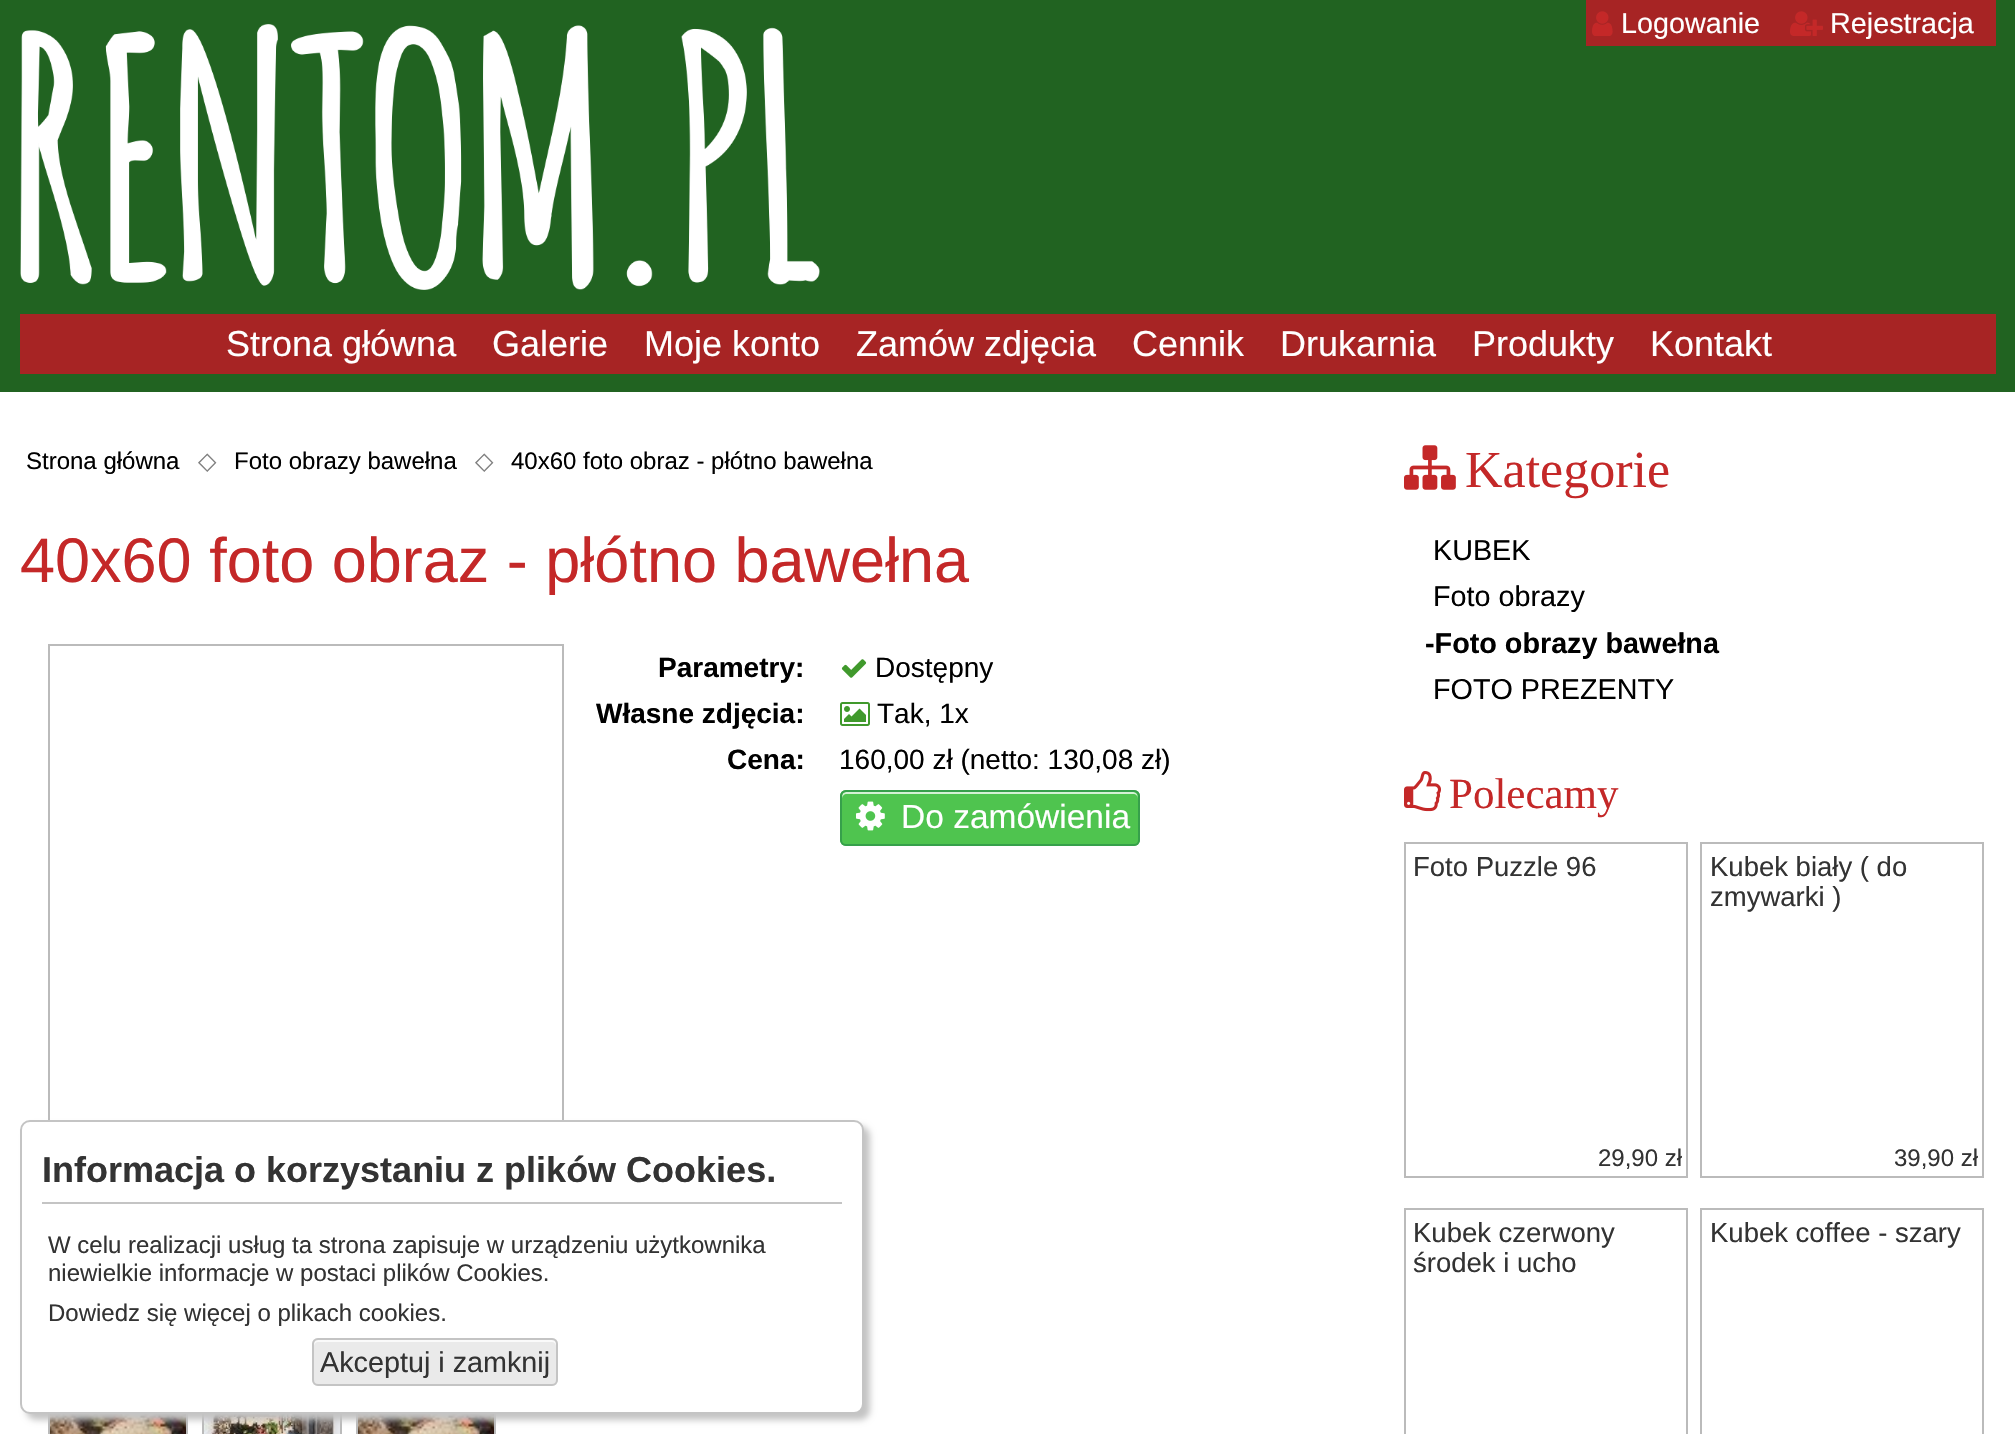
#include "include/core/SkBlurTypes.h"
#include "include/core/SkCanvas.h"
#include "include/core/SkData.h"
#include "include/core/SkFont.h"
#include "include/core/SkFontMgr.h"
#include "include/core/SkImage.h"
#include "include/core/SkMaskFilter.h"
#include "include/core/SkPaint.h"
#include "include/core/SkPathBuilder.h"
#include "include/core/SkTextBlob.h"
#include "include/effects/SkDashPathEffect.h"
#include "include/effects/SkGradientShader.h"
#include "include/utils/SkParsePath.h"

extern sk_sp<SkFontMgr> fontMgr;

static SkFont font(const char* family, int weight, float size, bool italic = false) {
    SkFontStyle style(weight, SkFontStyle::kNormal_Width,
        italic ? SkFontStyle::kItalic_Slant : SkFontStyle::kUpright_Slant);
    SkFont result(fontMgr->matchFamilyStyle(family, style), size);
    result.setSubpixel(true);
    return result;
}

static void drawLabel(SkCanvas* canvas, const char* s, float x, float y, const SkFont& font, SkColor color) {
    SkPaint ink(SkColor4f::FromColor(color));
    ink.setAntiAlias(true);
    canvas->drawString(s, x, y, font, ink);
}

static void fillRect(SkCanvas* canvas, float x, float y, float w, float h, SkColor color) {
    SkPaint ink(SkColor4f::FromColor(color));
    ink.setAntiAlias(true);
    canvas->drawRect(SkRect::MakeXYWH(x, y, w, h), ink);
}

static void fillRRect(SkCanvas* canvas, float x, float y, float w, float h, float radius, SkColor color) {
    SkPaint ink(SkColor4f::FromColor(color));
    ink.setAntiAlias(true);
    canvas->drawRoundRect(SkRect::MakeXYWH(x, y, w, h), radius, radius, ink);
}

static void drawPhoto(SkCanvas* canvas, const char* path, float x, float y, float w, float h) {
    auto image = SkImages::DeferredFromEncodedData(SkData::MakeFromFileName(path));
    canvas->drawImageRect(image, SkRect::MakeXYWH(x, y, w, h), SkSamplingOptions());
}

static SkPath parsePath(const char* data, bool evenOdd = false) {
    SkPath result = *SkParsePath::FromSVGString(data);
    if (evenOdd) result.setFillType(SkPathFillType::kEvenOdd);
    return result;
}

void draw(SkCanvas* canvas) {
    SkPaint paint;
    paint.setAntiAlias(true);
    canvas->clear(0xFFFFFFFF);
    fillRect(canvas, 0, 0, 2015, 392, 0xFF216321);
    drawPhoto(canvas, "assets/img1.png", 20, 24, 800, 266);
    fillRect(canvas, 1586, 0, 410, 46, 0xFFA72424);
    drawPhoto(canvas, "assets/img2.png", 1592, 11, 21, 25);
    SkFont font1 = font("Liberation Sans", 400, 28.75f);
    drawLabel(canvas, "Logowanie", 1621, 33, font1, 0xFFFFFFFF);
    drawPhoto(canvas, "assets/img3.png", 1790, 11, 33, 25);
    drawLabel(canvas, "Rejestracja", 1830, 33, font1, 0xFFFFFFFF);
    fillRect(canvas, 20, 314, 1976, 60, 0xFFA72424);
    SkFont font2 = font("Liberation Sans", 400, 36);
    drawLabel(canvas, "Strona główna", 226, 356, font2, 0xFFFFFFFF);
    drawLabel(canvas, "Galerie", 492, 356, font2, 0xFFFFFFFF);
    drawLabel(canvas, "Moje konto", 644, 356, font2, 0xFFFFFFFF);
    drawLabel(canvas, "Zamów zdjęcia", 856, 356, font2, 0xFFFFFFFF);
    drawLabel(canvas, "Cennik", 1132, 356, font2, 0xFFFFFFFF);
    drawLabel(canvas, "Drukarnia", 1280, 356, font2, 0xFFFFFFFF);
    drawLabel(canvas, "Produkty", 1472, 356, font2, 0xFFFFFFFF);
    drawLabel(canvas, "Kontakt", 1650, 356, font2, 0xFFFFFFFF);
    SkFont font3 = font("Liberation Sans", 400, 24);
    drawLabel(canvas, "Strona główna", 26, 469, font3, 0xFF000000);
    SkFont font4 = font("DejaVu Sans", 400, 24);
    drawLabel(canvas, "◇", 198, 469, font4, 0xFF808080);
    drawLabel(canvas, "Foto obrazy bawełna", 234, 469, font3, 0xFF000000);
    drawLabel(canvas, "◇", 475, 469, font4, 0xFF808080);
    drawLabel(canvas, "40x60 foto obraz - płótno bawełna", 511, 469, font3, 0xFF000000);
    SkFont font5 = font("Liberation Sans", 400, 63);
    drawLabel(canvas, "40x60 foto obraz - płótno bawełna", 20, 582, font5, 0xFFC42828);
    paint.setStroke(true);
    paint.setStrokeWidth(2);
    paint.setColor(0xFFBBBBBB);
    canvas->drawRect(SkRect::MakeXYWH(49, 645, 514, 670), paint);
    SkFont font6 = font("Liberation Sans", 700, 28);
    drawLabel(canvas, "Parametry:", 658, 677, font6, 0xFF000000);
    drawPhoto(canvas, "assets/img4.png", 841, 659, 26, 19);
    SkFont font7 = font("Liberation Sans", 400, 28);
    drawLabel(canvas, "Dostępny", 875, 677, font7, 0xFF000000);
    drawLabel(canvas, "Własne zdjęcia:", 596, 723, font6, 0xFF000000);
    drawPhoto(canvas, "assets/img5.png", 840, 702, 30, 24);
    drawLabel(canvas, "Tak, 1x", 877, 723, font7, 0xFF000000);
    drawLabel(canvas, "Cena:", 727, 769, font6, 0xFF000000);
    drawLabel(canvas, "160,00 zł (netto: 130,08 zł)", 839, 769, font7, 0xFF000000);
    fillRRect(canvas, 840, 790, 300, 56, 6, 0xFF4FC44F);
    paint.setStroke(false);
    paint.setColor(0xFFD5F1D5);
    canvas->drawPath(parsePath("M847 794H1133C1136 794 1138 796 1138 799C1138 796 1137 792 1133 792H846C842 793 842 796 842 799C842 796 844 794 847 794Z"), paint);
    paint.setStroke(true);
    paint.setColor(0xFF36A04B);
    canvas->drawRoundRect(SkRect::MakeXYWH(841, 791, 298, 54), 5, 5, paint);
    drawPhoto(canvas, "assets/img6.png", 856, 801, 29, 30);
    SkFont font8 = font("Liberation Sans", 400, 33.5f);
    drawLabel(canvas, "Do zamówienia", 901, 828, font8, 0xFFFFFFFF);
    drawPhoto(canvas, "assets/img7.png", 50, 1414, 136, 20);
    paint.setColor(0xFFBBBBBB);
    canvas->drawRect(SkRect::MakeXYWH(49, 1345, 138, 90), paint);
    drawPhoto(canvas, "assets/img8.png", 204, 1414, 136, 20);
    canvas->drawRect(SkRect::MakeXYWH(203, 1345, 138, 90), paint);
    drawPhoto(canvas, "assets/img7.png", 358, 1414, 136, 20);
    canvas->drawRect(SkRect::MakeXYWH(357, 1345, 138, 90), paint);
    paint.setStroke(false);
    paint.setColor(0xFFC4C4C4);
    paint.setMaskFilter(SkMaskFilter::MakeBlur(kNormal_SkBlurStyle, 3));
    canvas->drawRoundRect(SkRect::MakeXYWH(26, 1126, 844, 294), 10, 10, paint);
    paint.setMaskFilter(nullptr);
    paint.setColor(0xFFFFFFFF);
    canvas->drawRoundRect(SkRect::MakeXYWH(21, 1121, 842, 292), 9, 9, paint);
    paint.setStroke(true);
    paint.setColor(0xFFC4C4C4);
    canvas->drawRoundRect(SkRect::MakeXYWH(21, 1121, 842, 292), 9, 9, paint);
    fillRect(canvas, 42, 1202, 800, 2, 0xFFC4C4C4);
    SkFont font9 = font("Liberation Sans", 700, 36);
    drawLabel(canvas, "Informacja o korzystaniu z plików Cookies.", 42, 1182, font9, 0xFF333333);
    drawLabel(canvas, "W celu realizacji usług ta strona zapisuje w urządzeniu użytkownika", 48, 1253, font3, 0xFF333333);
    drawLabel(canvas, "niewielkie informacje w postaci plików Cookies.", 48, 1281, font3, 0xFF333333);
    drawLabel(canvas, "Dowiedz się więcej o plikach cookies.", 48, 1321, font3, 0xFF333333);
    fillRRect(canvas, 312, 1338, 246, 48, 6, 0xFFEAEAEA);
    paint.setStroke(false);
    paint.setColor(0xFFFAFAFA);
    canvas->drawPath(parsePath("M318 1342H552C554 1342 556 1344 556 1346V1344C556 1342 554 1340 552 1340H318C316 1340 314 1342 314 1344V1346C314 1344 316 1342 318 1342Z"), paint);
    paint.setStroke(true);
    paint.setColor(0xFFC4C4C4);
    canvas->drawRoundRect(SkRect::MakeXYWH(313, 1339, 244, 46), 5, 5, paint);
    drawLabel(canvas, "Akceptuj i zamknij", 320, 1372, font1, 0xFF333333);
    drawPhoto(canvas, "assets/img9.png", 1404, 445, 52, 45);
    SkFont font10 = font("Liberation Serif", 400, 52);
    drawLabel(canvas, "Kategorie", 1465, 487, font10, 0xFFC42828);
    drawLabel(canvas, "KUBEK", 1433, 560, font1, 0xFF000000);
    drawLabel(canvas, "Foto obrazy", 1433, 606, font1, 0xFF000000);
    SkFont font11 = font("Liberation Sans", 700, 28.75f);
    drawLabel(canvas, "-Foto obrazy bawełna", 1425, 653, font11, 0xFF000000);
    drawLabel(canvas, "FOTO PREZENTY", 1433, 699, font1, 0xFF000000);
    drawPhoto(canvas, "assets/img10.png", 1404, 771, 37, 41);
    SkFont font12 = font("Liberation Serif", 400, 43);
    drawLabel(canvas, "Polecamy", 1449, 808, font12, 0xFFC42828);
    paint.setColor(0xFFBBBBBB);
    canvas->drawRect(SkRect::MakeXYWH(1405, 843, 282, 334), paint);
    SkFont font13 = font("Liberation Sans", 400, 27.5f);
    drawLabel(canvas, "Foto Puzzle 96", 1413, 876, font13, 0xFF333333);
    drawLabel(canvas, "29,90 zł", 1598, 1166, font3, 0xFF333333);
    canvas->drawRect(SkRect::MakeXYWH(1701, 843, 282, 334), paint);
    drawLabel(canvas, "Kubek biały ( do", 1710, 876, font13, 0xFF333333);
    drawLabel(canvas, "zmywarki )", 1710, 906, font13, 0xFF333333);
    drawLabel(canvas, "39,90 zł", 1894, 1166, font3, 0xFF333333);
    canvas->drawRect(SkRect::MakeXYWH(1405, 1209, 282, 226), paint);
    drawLabel(canvas, "Kubek czerwony", 1413, 1242, font13, 0xFF333333);
    drawLabel(canvas, "środek i ucho", 1413, 1272, font13, 0xFF333333);
    canvas->drawRect(SkRect::MakeXYWH(1701, 1209, 282, 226), paint);
    drawLabel(canvas, "Kubek coffee - szary", 1710, 1242, font13, 0xFF333333);
}
